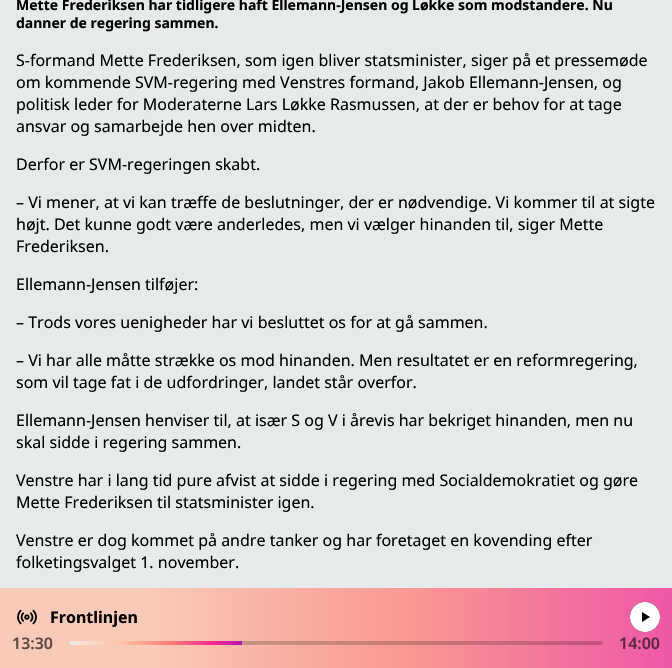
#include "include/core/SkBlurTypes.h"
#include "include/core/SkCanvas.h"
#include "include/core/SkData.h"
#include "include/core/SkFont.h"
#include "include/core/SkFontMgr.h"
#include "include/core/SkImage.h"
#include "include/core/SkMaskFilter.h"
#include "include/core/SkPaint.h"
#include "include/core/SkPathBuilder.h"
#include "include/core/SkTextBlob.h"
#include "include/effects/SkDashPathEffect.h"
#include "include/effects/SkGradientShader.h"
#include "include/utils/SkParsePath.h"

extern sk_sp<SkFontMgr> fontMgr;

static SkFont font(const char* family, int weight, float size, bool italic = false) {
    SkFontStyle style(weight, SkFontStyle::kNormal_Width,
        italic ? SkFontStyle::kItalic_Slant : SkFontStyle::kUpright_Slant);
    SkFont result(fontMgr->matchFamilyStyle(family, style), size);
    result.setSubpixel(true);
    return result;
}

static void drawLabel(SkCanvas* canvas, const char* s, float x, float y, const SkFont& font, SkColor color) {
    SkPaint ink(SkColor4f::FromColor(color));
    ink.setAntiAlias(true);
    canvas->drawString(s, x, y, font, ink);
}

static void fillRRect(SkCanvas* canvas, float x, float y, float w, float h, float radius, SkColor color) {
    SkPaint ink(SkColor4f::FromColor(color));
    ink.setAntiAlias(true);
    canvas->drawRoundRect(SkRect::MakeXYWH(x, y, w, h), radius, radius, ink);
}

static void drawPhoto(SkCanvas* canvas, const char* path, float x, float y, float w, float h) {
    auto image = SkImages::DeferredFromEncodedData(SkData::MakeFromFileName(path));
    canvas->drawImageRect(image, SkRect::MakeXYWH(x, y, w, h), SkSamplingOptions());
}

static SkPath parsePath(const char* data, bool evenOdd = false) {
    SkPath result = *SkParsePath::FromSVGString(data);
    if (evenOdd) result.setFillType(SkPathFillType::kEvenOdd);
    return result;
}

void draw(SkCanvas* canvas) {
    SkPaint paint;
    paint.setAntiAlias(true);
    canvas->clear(0xFFE7EAEA);
    SkFont font1 = font("Noto Sans", 700, 14);
    drawLabel(canvas, "Mette Frederiksen har tidligere haft Ellemann-Jensen og Løkke som modstandere. Nu", 16, 10, font1, 0xFF000000);
    drawLabel(canvas, "danner de regering sammen.", 16, 28, font1, 0xFF000000);
    SkFont font2 = font("Noto Sans", 400, 16);
    drawLabel(canvas, "S-formand Mette Frederiksen, som igen bliver statsminister, siger på et pressemøde", 16, 66, font2, 0xFF000000);
    drawLabel(canvas, "om kommende SVM-regering med Venstres formand, Jakob Ellemann-Jensen, og", 16, 88, font2, 0xFF000000);
    drawLabel(canvas, "politisk leder for Moderaterne Lars Løkke Rasmussen, at der er behov for at tage", 16, 110, font2, 0xFF000000);
    drawLabel(canvas, "ansvar og samarbejde hen over midten.", 16, 132, font2, 0xFF000000);
    drawLabel(canvas, "Derfor er SVM-regeringen skabt.", 16, 170, font2, 0xFF000000);
    drawLabel(canvas, "– Vi mener, at vi kan træffe de beslutninger, der er nødvendige. Vi kommer til at sigte", 16, 208, font2, 0xFF000000);
    drawLabel(canvas, "højt. Det kunne godt være anderledes, men vi vælger hinanden til, siger Mette", 16, 230, font2, 0xFF000000);
    drawLabel(canvas, "Frederiksen.", 16, 252, font2, 0xFF000000);
    drawLabel(canvas, "Ellemann-Jensen tilføjer:", 16, 290, font2, 0xFF000000);
    drawLabel(canvas, "– Trods vores uenigheder har vi besluttet os for at gå sammen.", 16, 328, font2, 0xFF000000);
    drawLabel(canvas, "– Vi har alle måtte strække os mod hinanden. Men resultatet er en reformregering,", 16, 366, font2, 0xFF000000);
    drawLabel(canvas, "som vil tage fat i de udfordringer, landet står overfor.", 16, 388, font2, 0xFF000000);
    drawLabel(canvas, "Ellemann-Jensen henviser til, at især S og V i årevis har bekriget hinanden, men nu", 16, 426, font2, 0xFF000000);
    drawLabel(canvas, "skal sidde i regering sammen.", 16, 448, font2, 0xFF000000);
    drawLabel(canvas, "Venstre har i lang tid pure afvist at sidde i regering med Socialdemokratiet og gøre", 16, 486, font2, 0xFF000000);
    drawLabel(canvas, "Mette Frederiksen til statsminister igen.", 16, 508, font2, 0xFF000000);
    drawLabel(canvas, "Venstre er dog kommet på andre tanker og har foretaget en kovending efter", 16, 546, font2, 0xFF000000);
    drawLabel(canvas, "folketingsvalget 1. november.", 16, 568, font2, 0xFF000000);
    {
        const SkColor colors[] = {0xBFFFBFA6, 0xBFFF7E75, 0xBFF1278F};
        const float stops[] = {0.22f, 0.6f, 1};
        const SkPoint ends[] = {{0, 628}, {672, 628}};
        paint.setShader(SkGradientShader::MakeLinear(ends, colors, stops, 3, SkTileMode::kClamp));
        paint.setAlpha(255);
    }
    canvas->drawRect(SkRect::MakeXYWH(0, 588, 672, 80), paint);
    drawPhoto(canvas, "assets/img1.png", 17, 609, 20, 16);
    SkFont font3 = font("Noto Sans", 700, 16);
    drawLabel(canvas, "Frontlinjen", 50, 623, font3, 0xFF000000);
    drawPhoto(canvas, "assets/img2.png", 630, 602, 30, 30);
    SkFont font4 = font("Noto Sans", 600, 16);
    drawLabel(canvas, "13:30", 12, 649, font4, 0xFF5E4B44);
    fillRRect(canvas, 69, 641, 534, 4, 2, 0x33000000);
    {
        const SkColor colors[] = {0xFFF3F3ED, 0xFFFFBFA6, 0xFFFF7E74, 0xFFF1278F, 0xFF7805D6};
        const float stops[] = {0, 0.31f, 0.53f, 0.74f, 1};
        const SkPoint ends[] = {{58, 643}, {270, 643}};
        paint.setShader(SkGradientShader::MakeLinear(ends, colors, stops, 5, SkTileMode::kClamp));
        paint.setAlpha(255);
    }
    canvas->drawPath(parsePath("M71 641H242V645H71C70 645 69 644 69 643C69 642 70 641 71 641Z"), paint);
    drawLabel(canvas, "14:00", 619, 649, font4, 0xFF602642);
}
